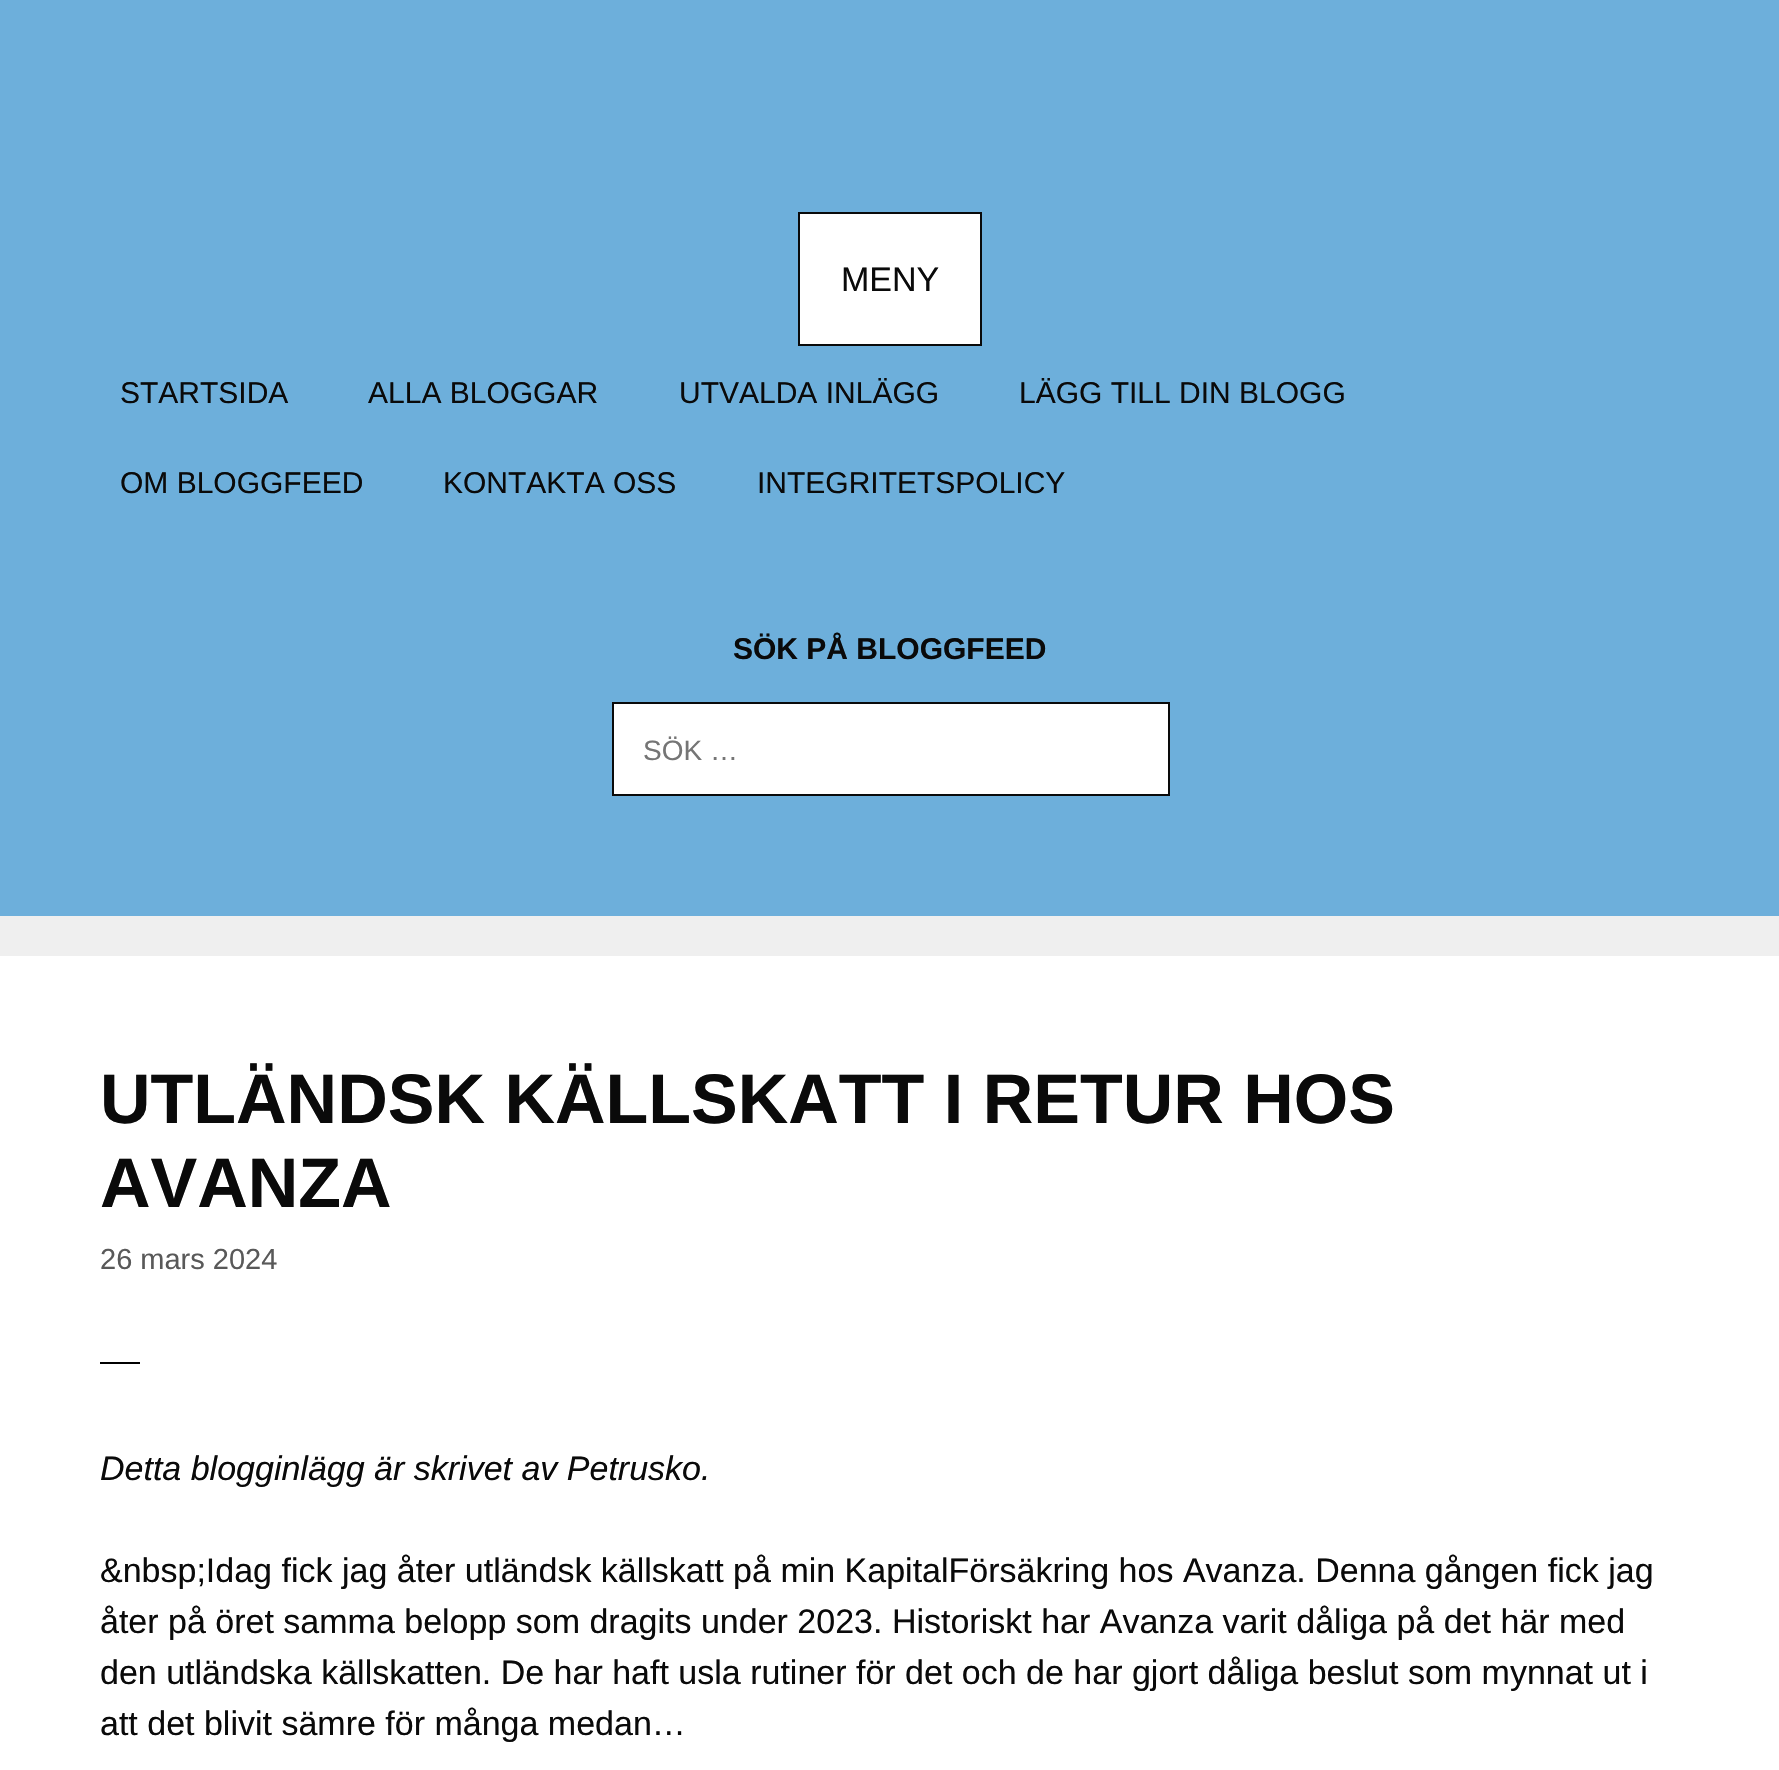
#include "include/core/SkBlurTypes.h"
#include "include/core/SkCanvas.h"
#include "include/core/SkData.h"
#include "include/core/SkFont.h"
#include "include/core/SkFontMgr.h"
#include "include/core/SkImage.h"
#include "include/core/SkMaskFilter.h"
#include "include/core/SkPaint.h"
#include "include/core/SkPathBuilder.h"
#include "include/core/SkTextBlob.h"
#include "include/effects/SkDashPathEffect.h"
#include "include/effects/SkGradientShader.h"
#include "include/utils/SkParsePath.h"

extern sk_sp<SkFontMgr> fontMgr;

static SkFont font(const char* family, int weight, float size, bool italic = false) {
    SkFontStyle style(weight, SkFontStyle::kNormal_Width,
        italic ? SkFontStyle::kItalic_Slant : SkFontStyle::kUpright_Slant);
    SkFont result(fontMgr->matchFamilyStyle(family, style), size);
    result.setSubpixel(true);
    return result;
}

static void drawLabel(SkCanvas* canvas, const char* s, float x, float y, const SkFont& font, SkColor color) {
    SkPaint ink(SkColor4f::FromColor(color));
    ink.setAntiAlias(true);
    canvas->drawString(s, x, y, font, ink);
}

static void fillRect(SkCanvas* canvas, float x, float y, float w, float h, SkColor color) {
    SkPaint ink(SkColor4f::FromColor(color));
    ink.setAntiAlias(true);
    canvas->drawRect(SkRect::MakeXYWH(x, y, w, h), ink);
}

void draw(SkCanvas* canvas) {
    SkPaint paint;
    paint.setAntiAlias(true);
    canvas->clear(0xFFEFEFEF);
    fillRect(canvas, 0, 0, 1779, 916, 0xFF6DAFDB);
    paint.setColor(0xFFFFFFFF);
    canvas->drawRect(SkRect::MakeXYWH(799, 213, 182, 132), paint);
    paint.setStroke(true);
    paint.setStrokeWidth(2);
    paint.setColor(0xFF0A0A0A);
    canvas->drawRect(SkRect::MakeXYWH(799, 213, 182, 132), paint);
    SkFont font1 = font("Arimo", 400, 34);
    drawLabel(canvas, "MENY", 841, 291, font1, 0xFF0A0A0A);
    SkFont font2 = font("Arimo", 400, 30);
    drawLabel(canvas, "STARTSIDA", 120, 403, font2, 0xFF0A0A0A);
    drawLabel(canvas, "ALLA BLOGGAR", 368, 403, font2, 0xFF0A0A0A);
    drawLabel(canvas, "UTVALDA INLÄGG", 679, 403, font2, 0xFF0A0A0A);
    drawLabel(canvas, "LÄGG TILL DIN BLOGG", 1019, 403, font2, 0xFF0A0A0A);
    drawLabel(canvas, "OM BLOGGFEED", 120, 493, font2, 0xFF0A0A0A);
    drawLabel(canvas, "KONTAKTA OSS", 443, 493, font2, 0xFF0A0A0A);
    drawLabel(canvas, "INTEGRITETSPOLICY", 757, 493, font2, 0xFF0A0A0A);
    SkFont font3 = font("Arimo", 700, 30);
    drawLabel(canvas, "SÖK PÅ BLOGGFEED", 733, 659, font3, 0xFF0A0A0A);
    paint.setStroke(false);
    paint.setColor(0xFFFFFFFF);
    canvas->drawRect(SkRect::MakeXYWH(613, 703, 556, 92), paint);
    paint.setStroke(true);
    paint.setColor(0xFF0A0A0A);
    canvas->drawRect(SkRect::MakeXYWH(613, 703, 556, 92), paint);
    SkFont font4 = font("Arimo", 400, 28);
    drawLabel(canvas, "SÖK …", 643, 760, font4, 0xFF757575);
    fillRect(canvas, 0, 956, 1779, 814, 0xFFFFFFFF);
    SkFont font5 = font("Arimo", 700, 70);
    drawLabel(canvas, "UTLÄNDSK KÄLLSKATT I RETUR HOS", 100, 1123, font5, 0xFF0A0A0A);
    drawLabel(canvas, "AVANZA", 100, 1207, font5, 0xFF0A0A0A);
    SkFont font6 = font("Arimo", 400, 29);
    drawLabel(canvas, "26 mars 2024", 100, 1269, font6, 0xFF595959);
    fillRect(canvas, 100, 1362, 40, 2, 0xFF000000);
    SkFont font7 = font("Arimo", 400, 34, true);
    drawLabel(canvas, "Detta blogginlägg är skrivet av Petrusko.", 100, 1480, font7, 0xFF0A0A0A);
    drawLabel(canvas, "&nbsp;Idag fick jag åter utländsk källskatt på min KapitalFörsäkring hos Avanza. Denna gången fick jag", 100, 1582, font1, 0xFF0A0A0A);
    drawLabel(canvas, "åter på öret samma belopp som dragits under 2023. Historiskt har Avanza varit dåliga på det här med", 100, 1633, font1, 0xFF0A0A0A);
    drawLabel(canvas, "den utländska källskatten. De har haft usla rutiner för det och de har gjort dåliga beslut som mynnat ut i", 100, 1684, font1, 0xFF0A0A0A);
    drawLabel(canvas, "att det blivit sämre för många medan…", 100, 1735, font1, 0xFF0A0A0A);
}
